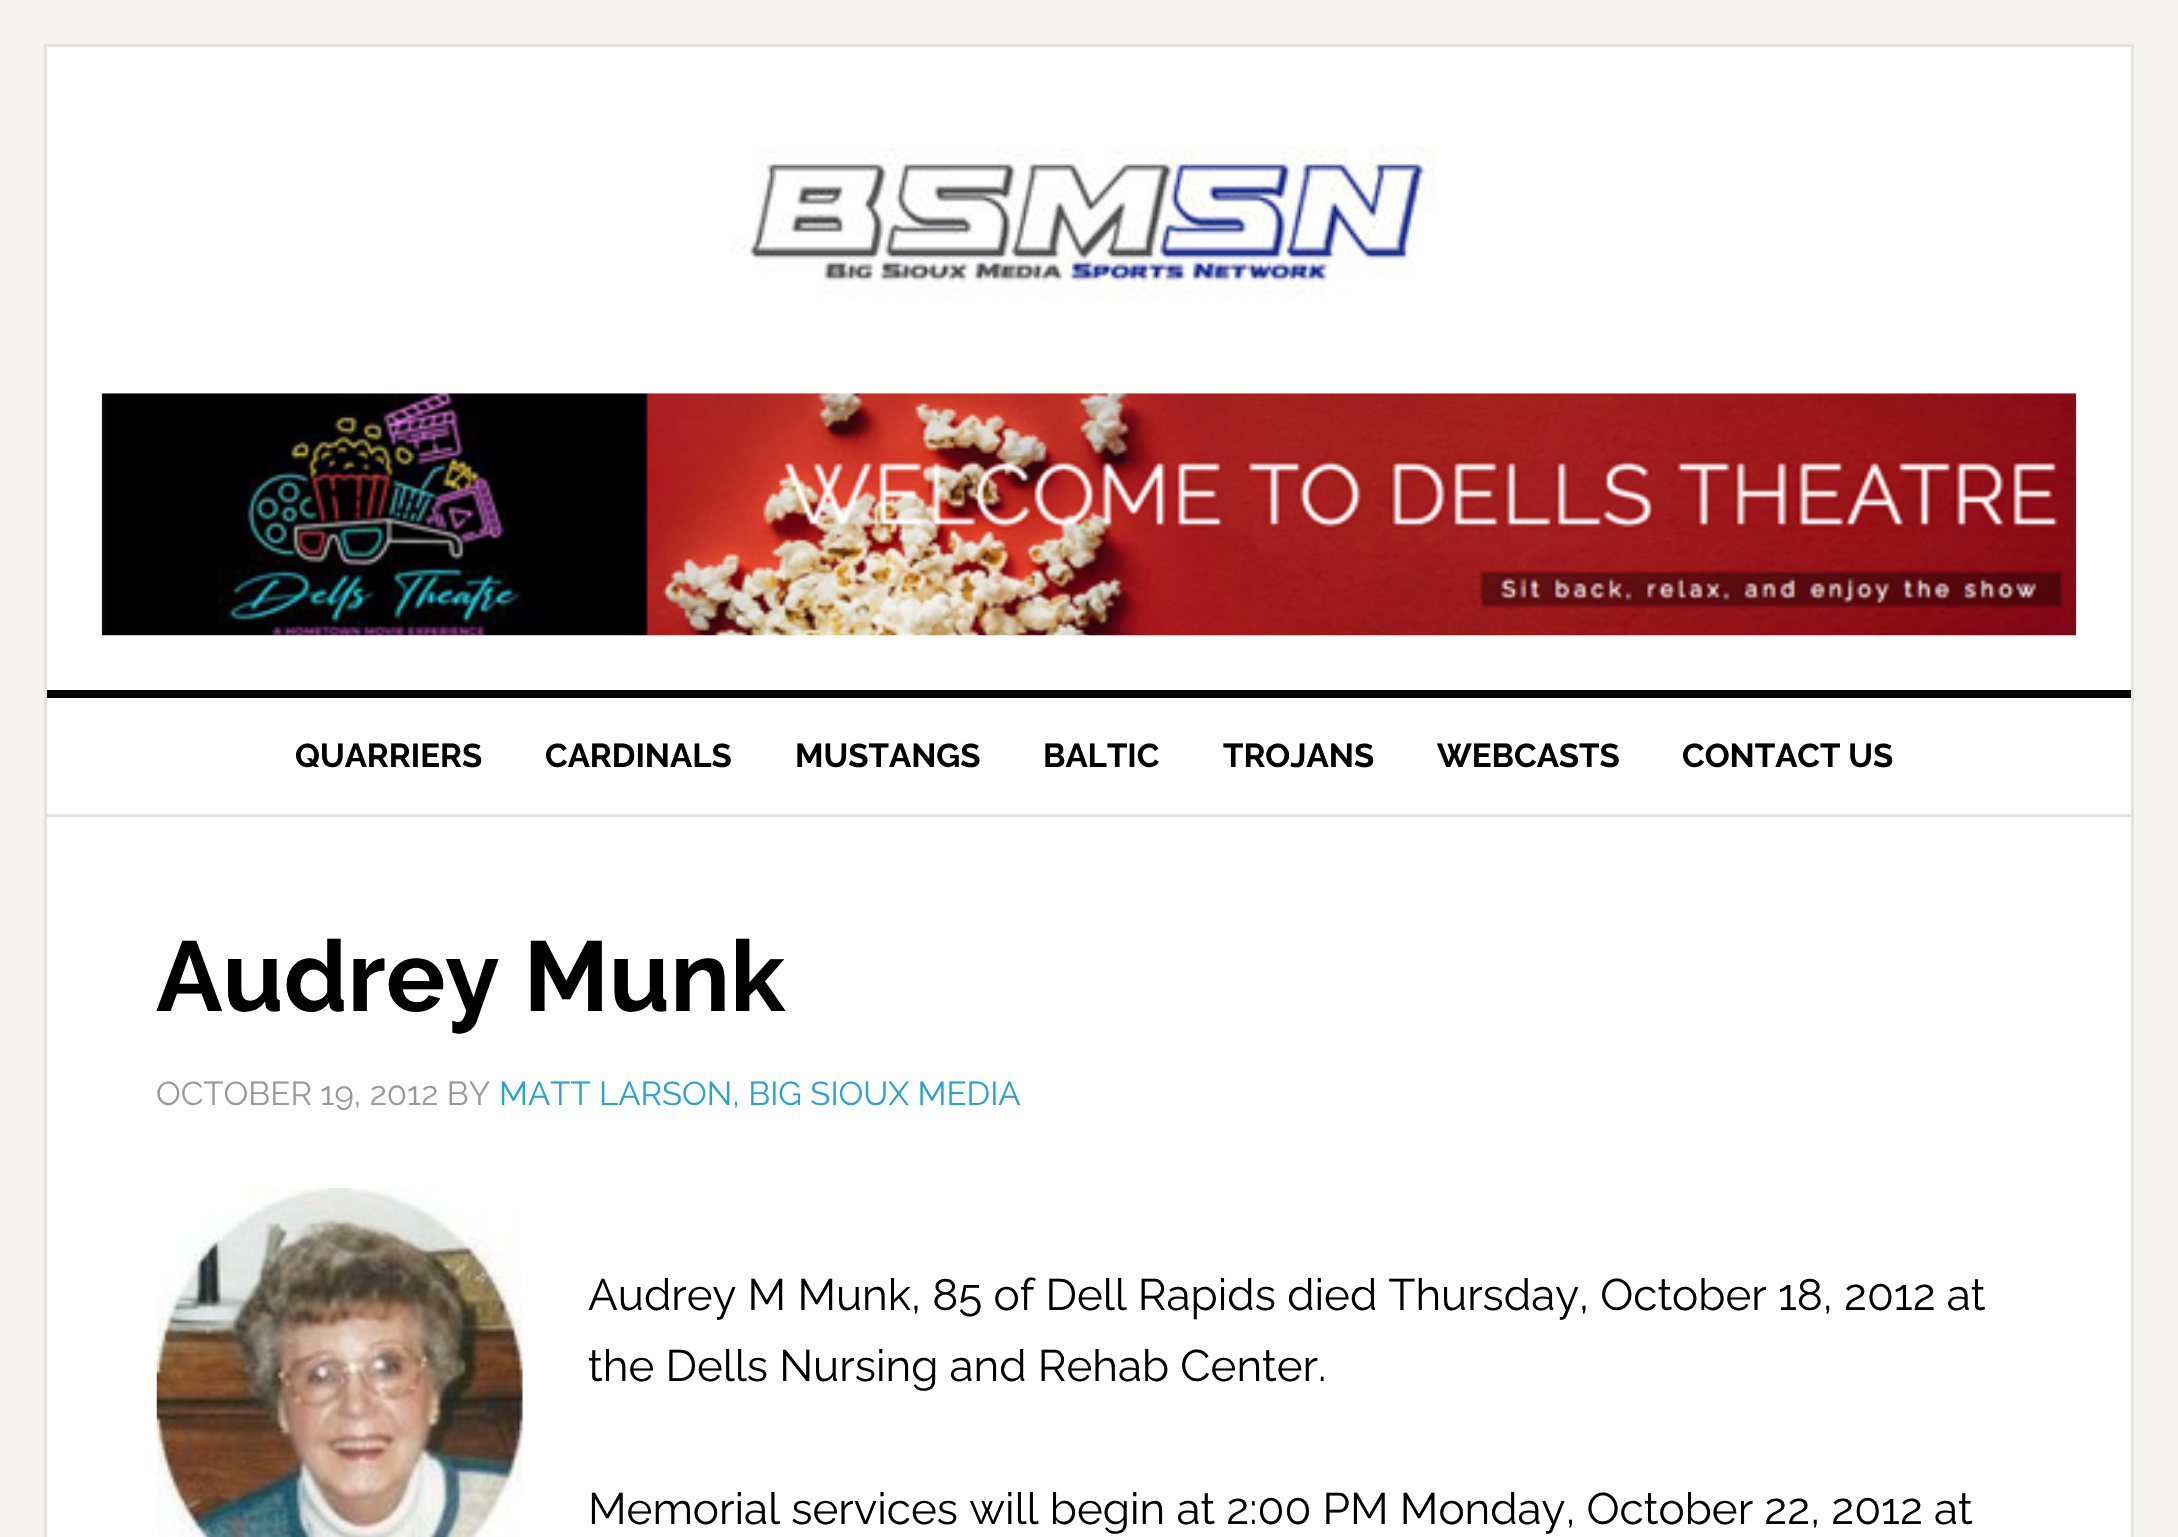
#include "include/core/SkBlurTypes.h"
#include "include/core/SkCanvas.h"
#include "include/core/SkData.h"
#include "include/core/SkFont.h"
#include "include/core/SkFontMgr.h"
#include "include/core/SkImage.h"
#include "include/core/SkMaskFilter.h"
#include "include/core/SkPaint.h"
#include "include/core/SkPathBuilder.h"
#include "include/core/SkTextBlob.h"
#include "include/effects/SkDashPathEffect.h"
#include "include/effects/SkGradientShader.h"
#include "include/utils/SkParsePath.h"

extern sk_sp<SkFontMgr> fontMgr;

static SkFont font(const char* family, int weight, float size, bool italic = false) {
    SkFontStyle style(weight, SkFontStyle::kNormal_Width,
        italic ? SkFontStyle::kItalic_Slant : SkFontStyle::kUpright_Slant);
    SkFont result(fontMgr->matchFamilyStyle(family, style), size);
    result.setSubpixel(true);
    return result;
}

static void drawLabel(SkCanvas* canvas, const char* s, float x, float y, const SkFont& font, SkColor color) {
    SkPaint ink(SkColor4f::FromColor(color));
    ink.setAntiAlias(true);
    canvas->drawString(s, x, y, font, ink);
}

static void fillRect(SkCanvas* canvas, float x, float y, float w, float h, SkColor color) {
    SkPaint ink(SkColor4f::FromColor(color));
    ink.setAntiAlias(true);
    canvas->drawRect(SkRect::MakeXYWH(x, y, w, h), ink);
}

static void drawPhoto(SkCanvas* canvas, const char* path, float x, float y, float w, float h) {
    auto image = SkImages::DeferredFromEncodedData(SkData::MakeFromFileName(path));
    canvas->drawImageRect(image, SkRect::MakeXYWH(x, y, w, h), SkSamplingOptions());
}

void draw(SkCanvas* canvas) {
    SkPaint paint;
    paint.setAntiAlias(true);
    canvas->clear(0xFFF6F5F2);
    paint.setColor(0xFFFFFFFF);
    canvas->drawRect(SkRect::MakeXYWH(45.5f, 45.5f, 2087, 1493), paint);
    paint.setStroke(true);
    paint.setStrokeWidth(3);
    paint.setColor(0xFFE3E3E3);
    canvas->drawRect(SkRect::MakeXYWH(45.5f, 45.5f, 2087, 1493), paint);
    drawPhoto(canvas, "assets/img1.png", 731, 145, 705, 154);
    drawPhoto(canvas, "assets/img2.png", 101, 393, 1976, 243);
    fillRect(canvas, 47, 690, 2084, 8, 0xFF000000);
    fillRect(canvas, 47, 814, 2084, 3, 0xFFE3E3E3);
    SkFont font1 = font("Raleway", 700, 33);
    drawLabel(canvas, "QUARRIERS", 295, 767, font1, 0xFF000000);
    drawLabel(canvas, "CARDINALS", 545, 767, font1, 0xFF000000);
    drawLabel(canvas, "MUSTANGS", 795, 767, font1, 0xFF000000);
    drawLabel(canvas, "BALTIC", 1043, 767, font1, 0xFF000000);
    drawLabel(canvas, "TROJANS", 1223, 767, font1, 0xFF000000);
    drawLabel(canvas, "WEBCASTS", 1437, 767, font1, 0xFF000000);
    drawLabel(canvas, "CONTACT US", 1682, 767, font1, 0xFF000000);
    SkFont font2 = font("Raleway", 700, 99);
    drawLabel(canvas, "Audrey Munk", 156, 1011, font2, 0xFF000000);
    SkFont font3 = font("Raleway", 400, 33);
    drawLabel(canvas, "OCTOBER 19, 2012 BY", 156, 1105, font3, 0xFF999999);
    drawLabel(canvas, "MATT LARSON, BIG SIOUX MEDIA", 499, 1105, font3, 0xFF27A3D1);
    drawPhoto(canvas, "assets/img3.png", 156, 1188, 367, 349);
    SkFont font4 = font("Raleway", 400, 44);
    drawLabel(canvas, "Audrey M Munk, 85 of Dell Rapids died Thursday, October 18, 2012 at", 588, 1310, font4, 0xFF000000);
    drawLabel(canvas, "the Dells Nursing and Rehab Center.", 588, 1381, font4, 0xFF000000);
    drawLabel(canvas, "Memorial services will begin at 2:00 PM Monday, October 22, 2012 at", 588, 1524, font4, 0xFF000000);
}
